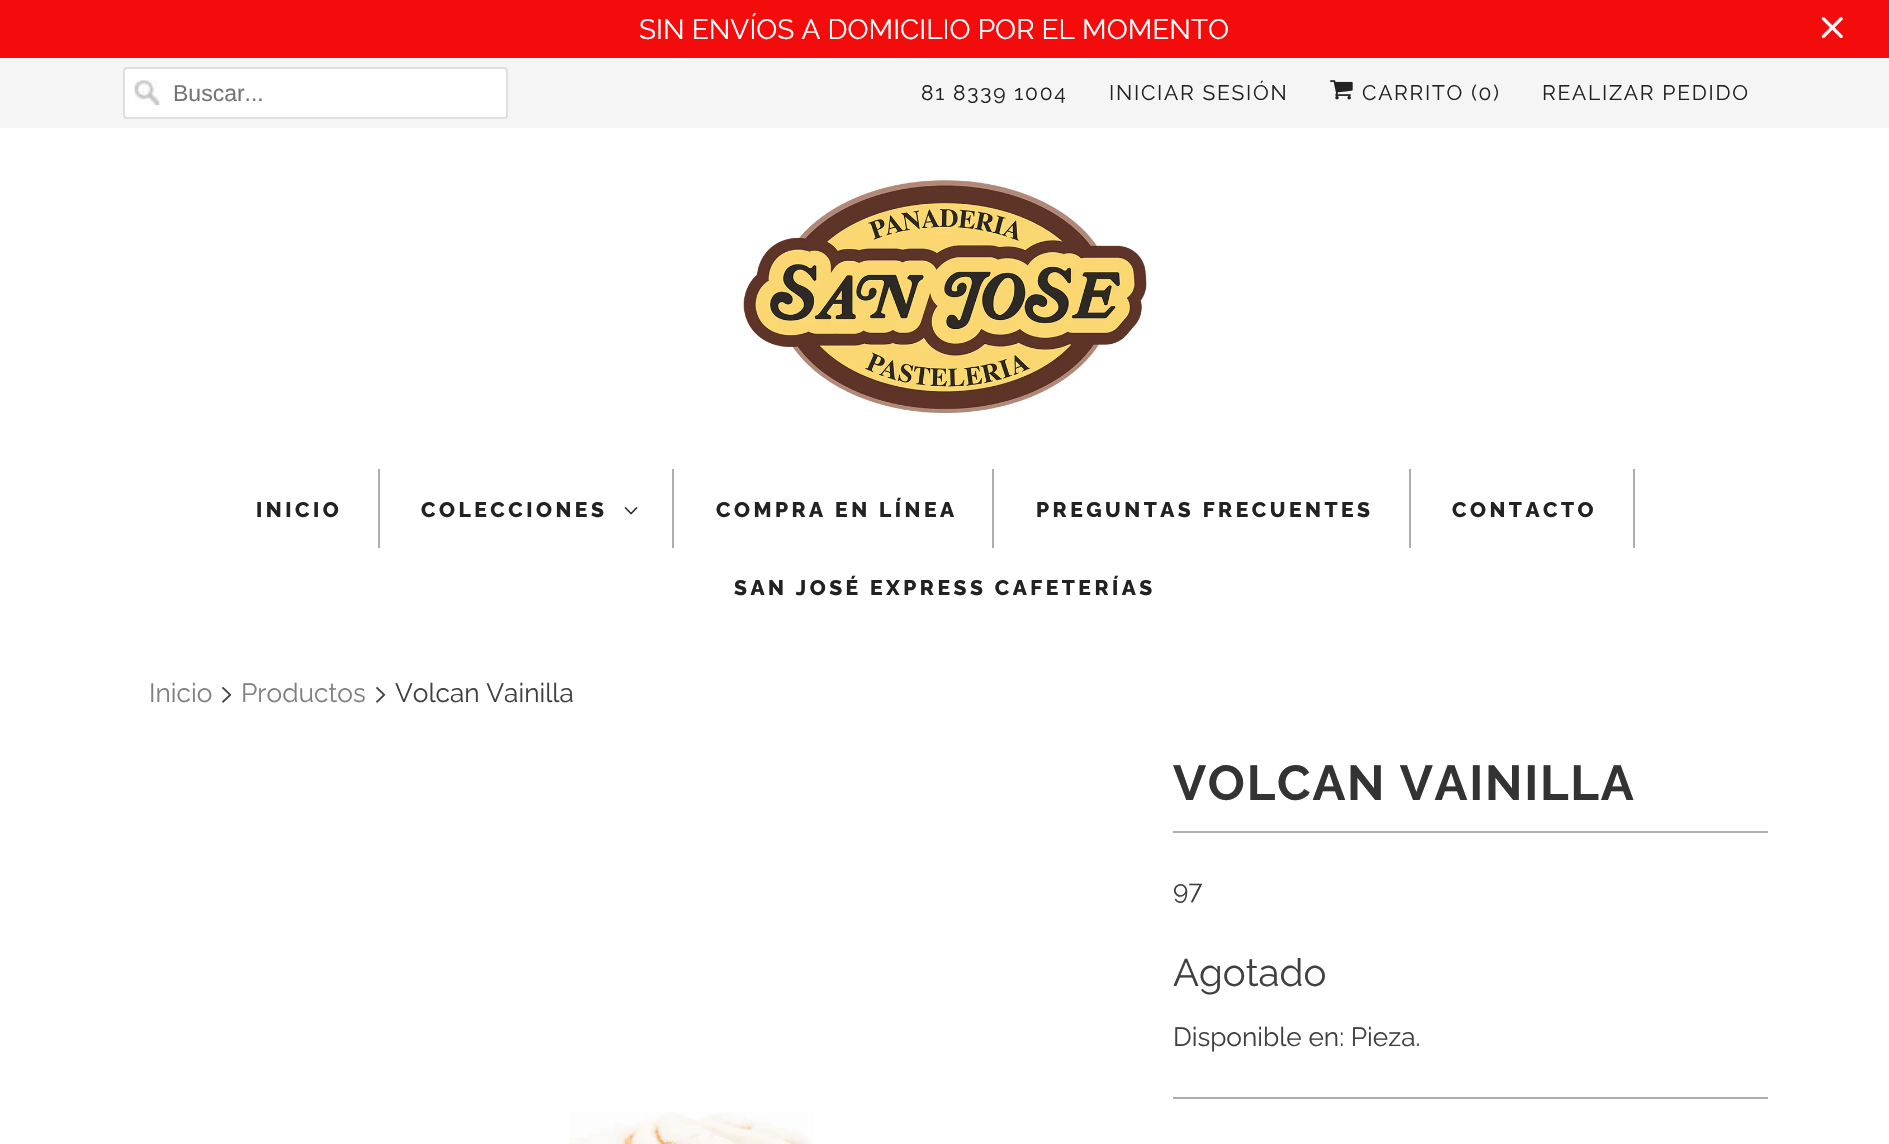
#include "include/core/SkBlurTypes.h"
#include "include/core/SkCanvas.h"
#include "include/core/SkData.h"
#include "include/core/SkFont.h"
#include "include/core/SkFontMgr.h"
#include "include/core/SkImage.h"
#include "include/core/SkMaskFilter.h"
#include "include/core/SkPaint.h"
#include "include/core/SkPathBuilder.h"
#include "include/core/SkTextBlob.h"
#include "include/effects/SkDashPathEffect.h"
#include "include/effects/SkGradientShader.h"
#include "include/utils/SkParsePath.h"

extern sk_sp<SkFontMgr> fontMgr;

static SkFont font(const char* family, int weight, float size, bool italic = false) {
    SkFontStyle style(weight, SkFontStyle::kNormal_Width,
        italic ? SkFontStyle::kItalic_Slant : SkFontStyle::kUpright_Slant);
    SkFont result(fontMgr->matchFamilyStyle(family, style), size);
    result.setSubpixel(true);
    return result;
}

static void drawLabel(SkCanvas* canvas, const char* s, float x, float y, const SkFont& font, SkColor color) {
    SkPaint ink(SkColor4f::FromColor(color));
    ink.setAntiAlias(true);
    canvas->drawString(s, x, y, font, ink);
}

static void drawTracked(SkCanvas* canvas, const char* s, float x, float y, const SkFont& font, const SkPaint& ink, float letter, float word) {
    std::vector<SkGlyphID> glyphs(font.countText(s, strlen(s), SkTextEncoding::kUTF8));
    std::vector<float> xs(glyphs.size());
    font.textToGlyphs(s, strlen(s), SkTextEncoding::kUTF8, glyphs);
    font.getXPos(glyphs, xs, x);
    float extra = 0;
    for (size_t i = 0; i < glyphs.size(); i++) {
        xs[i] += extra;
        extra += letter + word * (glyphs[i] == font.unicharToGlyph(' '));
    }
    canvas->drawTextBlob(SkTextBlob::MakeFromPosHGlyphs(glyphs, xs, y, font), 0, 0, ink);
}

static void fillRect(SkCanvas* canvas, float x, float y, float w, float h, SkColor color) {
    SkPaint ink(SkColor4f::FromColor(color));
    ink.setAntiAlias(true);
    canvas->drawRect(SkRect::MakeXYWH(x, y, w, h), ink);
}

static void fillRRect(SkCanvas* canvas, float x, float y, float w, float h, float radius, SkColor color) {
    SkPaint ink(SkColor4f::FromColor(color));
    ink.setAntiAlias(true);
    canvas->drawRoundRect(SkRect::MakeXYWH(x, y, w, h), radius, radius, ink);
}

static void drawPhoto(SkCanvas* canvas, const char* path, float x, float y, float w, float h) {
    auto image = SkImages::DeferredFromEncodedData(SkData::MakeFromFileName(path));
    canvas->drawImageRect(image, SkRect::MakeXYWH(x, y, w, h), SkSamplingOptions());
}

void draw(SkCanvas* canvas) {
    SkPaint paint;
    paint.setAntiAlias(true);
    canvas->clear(0xFFFFFFFF);
    fillRect(canvas, 0, 0, 1889, 58, 0xFFF40C0C);
    SkFont font1 = font("Raleway", 400, 28);
    drawLabel(canvas, "SIN ENVÍOS A DOMICILIO POR EL MOMENTO", 639, 39, font1, 0xFFFFFFFF);
    drawPhoto(canvas, "assets/img1.png", 1821, 17, 22, 22);
    fillRect(canvas, 0, 58, 1889, 70, 0xFFF5F5F5);
    fillRRect(canvas, 123, 67, 385, 52, 4, 0xFFFFFFFF);
    drawPhoto(canvas, "assets/img2.png", 134, 80, 26, 25);
    paint.setStroke(true);
    paint.setStrokeWidth(2);
    paint.setColor(0xFFDFDFDF);
    canvas->drawRoundRect(SkRect::MakeXYWH(124, 68, 383, 50), 3, 3, paint);
    SkFont font2 = font("Liberation Sans", 400, 23);
    drawLabel(canvas, "Buscar...", 173, 101, font2, 0xFF757575);
    SkFont font3 = font("Raleway", 400, 21);
    paint.setStroke(false);
    paint.setColor(0xFF222222);
    drawTracked(canvas, "81 8339 1004", 921, 100, font3, paint, 1.75f, 0);
    drawTracked(canvas, "INICIAR SESIÓN", 1109, 100, font3, paint, 1.75f, 0);
    drawPhoto(canvas, "assets/img3.png", 1330, 80, 23, 20);
    drawTracked(canvas, "CARRITO (0)", 1362, 100, font3, paint, 1.75f, 0);
    drawTracked(canvas, "REALIZAR PEDIDO", 1542, 100, font3, paint, 1.75f, 0);
    drawPhoto(canvas, "assets/img4.png", 743, 180, 404, 233);
    fillRect(canvas, 378, 469, 2, 79, 0xFFAEAEB0);
    SkFont font4 = font("Raleway", 800, 21);
    drawTracked(canvas, "INICIO", 256, 517, font4, paint, 3.5f, 0);
    fillRect(canvas, 672, 469, 2, 79, 0xFFAEAEB0);
    drawTracked(canvas, "COLECCIONES", 421, 517, font4, paint, 3.5f, 0);
    drawPhoto(canvas, "assets/img5.png", 624, 507, 14, 8);
    fillRect(canvas, 992, 469, 2, 79, 0xFFAEAEB0);
    drawTracked(canvas, "COMPRA EN LÍNEA", 716, 517, font4, paint, 3.5f, 0);
    fillRect(canvas, 1409, 469, 2, 79, 0xFFAEAEB0);
    drawTracked(canvas, "PREGUNTAS FRECUENTES", 1036, 517, font4, paint, 3.5f, 0);
    fillRect(canvas, 1633, 469, 2, 79, 0xFFAEAEB0);
    drawTracked(canvas, "CONTACTO", 1452, 517, font4, paint, 3.5f, 0);
    drawTracked(canvas, "SAN JOSÉ EXPRESS CAFETERÍAS", 734, 595, font4, paint, 3.5f, 0);
    SkFont font5 = font("Raleway", 400, 26.25f);
    drawLabel(canvas, "Inicio", 149, 702, font5, 0xFF808080);
    drawPhoto(canvas, "assets/img6.png", 222, 687, 10, 16);
    drawLabel(canvas, "Productos", 241, 702, font5, 0xFF808080);
    drawPhoto(canvas, "assets/img6.png", 376, 687, 10, 16);
    drawLabel(canvas, "Volcan Vainilla", 395, 702, font5, 0xFF404040);
    fillRect(canvas, 1173, 831, 595, 2, 0xFFAEAEB0);
    SkFont font6 = font("Raleway", 700, 49);
    paint.setColor(0xFF333333);
    drawTracked(canvas, "VOLCAN VAINILLA", 1173, 800, font6, paint, 1.75f, 0);
    drawLabel(canvas, "97", 1173, 899, font5, 0xFF404040);
    SkFont font7 = font("Raleway", 400, 38.5f);
    drawLabel(canvas, "Agotado", 1173, 986, font7, 0xFF404040);
    drawLabel(canvas, "Disponible en: Pieza.", 1173, 1046, font5, 0xFF404040);
    fillRect(canvas, 1173, 1097, 595, 2, 0xFFAEAEB0);
    drawPhoto(canvas, "assets/img7.png", 569, 1112, 244, 32);
}
